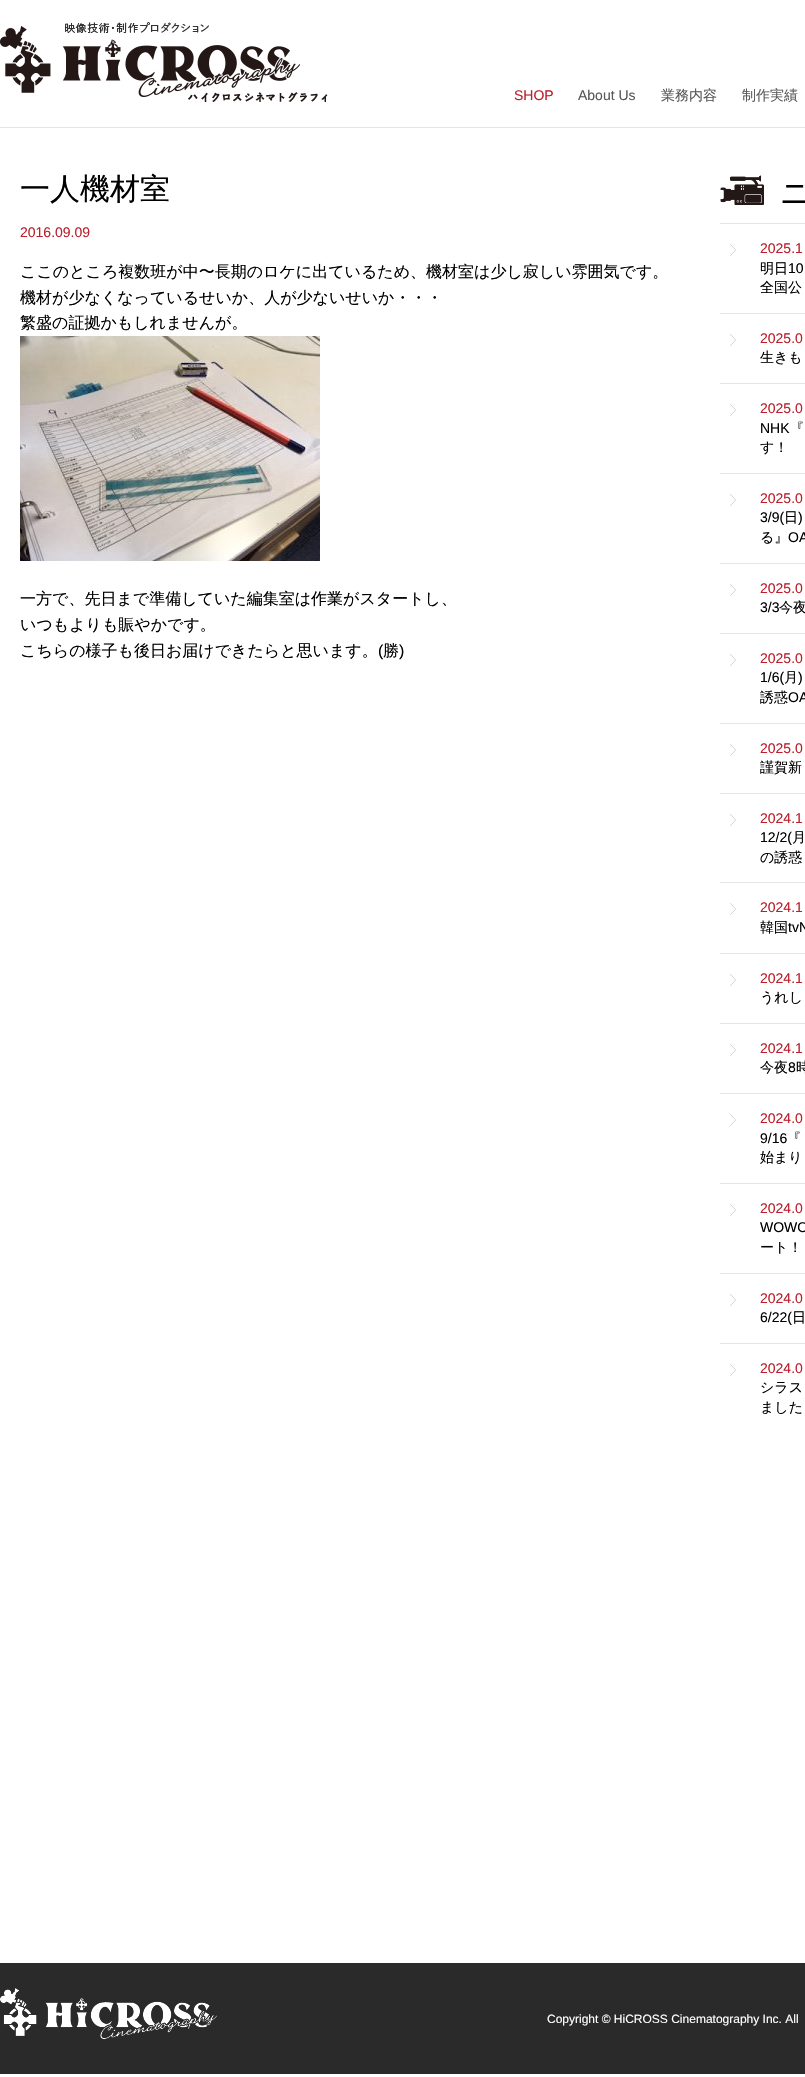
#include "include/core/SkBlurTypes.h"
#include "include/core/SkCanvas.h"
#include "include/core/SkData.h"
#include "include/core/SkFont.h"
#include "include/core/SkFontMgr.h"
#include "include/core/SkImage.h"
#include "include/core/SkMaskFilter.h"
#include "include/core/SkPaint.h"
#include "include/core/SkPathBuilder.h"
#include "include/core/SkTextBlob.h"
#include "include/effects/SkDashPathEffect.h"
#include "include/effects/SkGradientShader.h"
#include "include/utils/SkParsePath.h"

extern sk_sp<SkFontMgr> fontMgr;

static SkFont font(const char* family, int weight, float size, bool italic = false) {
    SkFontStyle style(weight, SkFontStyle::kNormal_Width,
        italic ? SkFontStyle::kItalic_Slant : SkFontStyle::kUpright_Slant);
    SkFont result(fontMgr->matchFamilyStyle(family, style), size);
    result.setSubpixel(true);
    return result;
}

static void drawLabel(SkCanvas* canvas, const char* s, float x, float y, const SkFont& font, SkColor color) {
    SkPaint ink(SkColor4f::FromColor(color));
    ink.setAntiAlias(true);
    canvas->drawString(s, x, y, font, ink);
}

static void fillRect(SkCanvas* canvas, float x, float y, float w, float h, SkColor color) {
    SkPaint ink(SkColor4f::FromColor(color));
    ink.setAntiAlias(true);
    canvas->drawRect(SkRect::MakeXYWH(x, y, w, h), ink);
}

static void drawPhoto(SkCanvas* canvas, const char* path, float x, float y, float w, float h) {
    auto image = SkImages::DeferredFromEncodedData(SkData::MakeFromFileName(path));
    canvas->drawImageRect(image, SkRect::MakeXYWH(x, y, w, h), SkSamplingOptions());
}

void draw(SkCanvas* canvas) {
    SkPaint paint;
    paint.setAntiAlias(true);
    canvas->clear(0xFFFFFFFF);
    fillRect(canvas, 0, 127, 805, 1, 0xFFE6E5E9);
    drawPhoto(canvas, "assets/img1.png", 0, 22, 328, 80);
    SkFont font1 = font("Liberation Sans", 400, 14);
    drawLabel(canvas, "SHOP", 514, 100, font1, 0xFFBB1F2C);
    drawLabel(canvas, "About Us", 578, 100, font1, 0xFF585858);
    SkFont font2 = font("WenQuanYi Zen Hei", 500, 14);
    drawLabel(canvas, "業務内容", 661, 100, font2, 0xFF585858);
    drawLabel(canvas, "制作実績", 742, 100, font2, 0xFF585858);
    SkFont font3 = font("WenQuanYi Zen Hei", 500, 30);
    drawLabel(canvas, "一人機材室", 20, 199, font3, 0xFF000000);
    drawLabel(canvas, "2016.09.09", 20, 237, font1, 0xFFBB1F2C);
    SkFont font4 = font("WenQuanYi Zen Hei", 500, 16);
    drawLabel(canvas, "ここのところ複数班が中〜長期のロケに出ているため、機材室は少し寂しい雰囲気です。", 20, 277, font4, 0xFF000000);
    drawLabel(canvas, "機材が少なくなっているせいか、人が少ないせいか・・・", 20, 303, font4, 0xFF000000);
    drawLabel(canvas, "繁盛の証拠かもしれませんが。", 20, 328, font4, 0xFF000000);
    drawPhoto(canvas, "assets/img2.png", 20, 336, 300, 225);
    drawLabel(canvas, "一方で、先日まで準備していた編集室は作業がスタートし、", 20, 604, font4, 0xFF000000);
    drawLabel(canvas, "いつもよりも賑やかです。", 20, 630, font4, 0xFF000000);
    drawLabel(canvas, "こちらの様子も後日お届けできたらと思います。", 20, 656, font4, 0xFF000000);
    SkFont font5 = font("Liberation Sans", 400, 16);
    drawLabel(canvas, "(", 378, 656, font5, 0xFF000000);
    drawLabel(canvas, "勝", 383, 656, font4, 0xFF000000);
    drawLabel(canvas, ")", 399, 656, font5, 0xFF000000);
    drawPhoto(canvas, "assets/img3.png", 720, 175, 44, 30);
    fillRect(canvas, 720, 223, 85, 1, 0xFFE6E5E9);
    drawLabel(canvas, "ニ", 780, 203, font3, 0xFF000000);
    fillRect(canvas, 720, 313, 85, 1, 0xFFE6E5E9);
    drawPhoto(canvas, "assets/img4.png", 730, 244, 6, 12);
    drawLabel(canvas, "2025.1", 760, 253, font1, 0xFFBB1F2C);
    drawLabel(canvas, "明日", 760, 273, font2, 0xFF000000);
    drawLabel(canvas, "10", 788, 273, font1, 0xFF000000);
    drawLabel(canvas, "全国公", 760, 292, font2, 0xFF000000);
    fillRect(canvas, 720, 383, 85, 1, 0xFFE6E5E9);
    drawPhoto(canvas, "assets/img4.png", 730, 334, 6, 12);
    drawLabel(canvas, "2025.0", 760, 343, font1, 0xFFBB1F2C);
    drawLabel(canvas, "生きも", 760, 362, font2, 0xFF000000);
    fillRect(canvas, 720, 473, 85, 1, 0xFFE6E5E9);
    drawPhoto(canvas, "assets/img4.png", 730, 404, 6, 12);
    drawLabel(canvas, "2025.0", 760, 413, font1, 0xFFBB1F2C);
    drawLabel(canvas, "NHK", 760, 433, font1, 0xFF000000);
    drawLabel(canvas, "『", 790, 433, font2, 0xFF000000);
    drawLabel(canvas, "す！", 760, 452, font2, 0xFF000000);
    fillRect(canvas, 720, 563, 85, 1, 0xFFE6E5E9);
    drawPhoto(canvas, "assets/img4.png", 730, 494, 6, 12);
    drawLabel(canvas, "2025.0", 760, 503, font1, 0xFFBB1F2C);
    drawLabel(canvas, "3/9(", 760, 522, font1, 0xFF000000);
    drawLabel(canvas, "日", 784, 522, font2, 0xFF000000);
    drawLabel(canvas, ")", 798, 522, font1, 0xFF000000);
    drawLabel(canvas, "る』", 760, 542, font2, 0xFF000000);
    drawLabel(canvas, "OA", 788, 542, font1, 0xFF000000);
    fillRect(canvas, 720, 633, 85, 1, 0xFFE6E5E9);
    drawPhoto(canvas, "assets/img4.png", 730, 584, 6, 12);
    drawLabel(canvas, "2025.0", 760, 593, font1, 0xFFBB1F2C);
    drawLabel(canvas, "3/3", 760, 612, font1, 0xFF000000);
    drawLabel(canvas, "今夜", 779, 612, font2, 0xFF000000);
    fillRect(canvas, 720, 723, 85, 1, 0xFFE6E5E9);
    drawPhoto(canvas, "assets/img4.png", 730, 654, 6, 12);
    drawLabel(canvas, "2025.0", 760, 663, font1, 0xFFBB1F2C);
    drawLabel(canvas, "1/6(", 760, 682, font1, 0xFF000000);
    drawLabel(canvas, "月", 784, 682, font2, 0xFF000000);
    drawLabel(canvas, ")", 798, 682, font1, 0xFF000000);
    drawLabel(canvas, "誘惑", 760, 702, font2, 0xFF000000);
    drawLabel(canvas, "OA", 788, 702, font1, 0xFF000000);
    fillRect(canvas, 720, 793, 85, 1, 0xFFE6E5E9);
    drawPhoto(canvas, "assets/img4.png", 730, 744, 6, 12);
    drawLabel(canvas, "2025.0", 760, 753, font1, 0xFFBB1F2C);
    drawLabel(canvas, "謹賀新", 760, 772, font2, 0xFF000000);
    fillRect(canvas, 720, 882, 85, 1, 0xFFE6E5E9);
    drawPhoto(canvas, "assets/img4.png", 730, 814, 6, 12);
    drawLabel(canvas, "2024.1", 760, 823, font1, 0xFFBB1F2C);
    drawLabel(canvas, "12/2(", 760, 842, font1, 0xFF000000);
    drawLabel(canvas, "月", 792, 842, font2, 0xFF000000);
    drawLabel(canvas, "の誘惑", 760, 862, font2, 0xFF000000);
    fillRect(canvas, 720, 953, 85, 1, 0xFFE6E5E9);
    drawPhoto(canvas, "assets/img4.png", 730, 903, 6, 12);
    drawLabel(canvas, "2024.1", 760, 912, font1, 0xFFBB1F2C);
    drawLabel(canvas, "韓国", 760, 932, font2, 0xFF000000);
    drawLabel(canvas, "tvN", 788, 932, font1, 0xFF000000);
    fillRect(canvas, 720, 1023, 85, 1, 0xFFE6E5E9);
    drawPhoto(canvas, "assets/img4.png", 730, 974, 6, 12);
    drawLabel(canvas, "2024.1", 760, 983, font1, 0xFFBB1F2C);
    drawLabel(canvas, "うれし", 760, 1002, font2, 0xFF000000);
    fillRect(canvas, 720, 1093, 85, 1, 0xFFE6E5E9);
    drawPhoto(canvas, "assets/img4.png", 730, 1044, 6, 12);
    drawLabel(canvas, "2024.1", 760, 1053, font1, 0xFFBB1F2C);
    drawLabel(canvas, "今夜", 760, 1072, font2, 0xFF000000);
    drawLabel(canvas, "8", 788, 1072, font1, 0xFF000000);
    drawLabel(canvas, "時", 796, 1072, font2, 0xFF000000);
    fillRect(canvas, 720, 1183, 85, 1, 0xFFE6E5E9);
    drawPhoto(canvas, "assets/img4.png", 730, 1114, 6, 12);
    drawLabel(canvas, "2024.0", 760, 1123, font1, 0xFFBB1F2C);
    drawLabel(canvas, "9/16", 760, 1143, font1, 0xFF000000);
    drawLabel(canvas, "『", 787, 1143, font2, 0xFF000000);
    drawLabel(canvas, "始まり", 760, 1162, font2, 0xFF000000);
    fillRect(canvas, 720, 1273, 85, 1, 0xFFE6E5E9);
    drawPhoto(canvas, "assets/img4.png", 730, 1204, 6, 12);
    drawLabel(canvas, "2024.0", 760, 1213, font1, 0xFFBB1F2C);
    drawLabel(canvas, "WOWO", 760, 1232, font1, 0xFF000000);
    drawLabel(canvas, "ート！", 760, 1252, font2, 0xFF000000);
    fillRect(canvas, 720, 1343, 85, 1, 0xFFE6E5E9);
    drawPhoto(canvas, "assets/img4.png", 730, 1294, 6, 12);
    drawLabel(canvas, "2024.0", 760, 1303, font1, 0xFFBB1F2C);
    drawLabel(canvas, "6/22(", 760, 1322, font1, 0xFF000000);
    drawLabel(canvas, "日", 792, 1322, font2, 0xFF000000);
    drawPhoto(canvas, "assets/img4.png", 730, 1364, 6, 12);
    drawLabel(canvas, "2024.0", 760, 1373, font1, 0xFFBB1F2C);
    drawLabel(canvas, "シラス", 760, 1392, font2, 0xFF000000);
    drawLabel(canvas, "ました", 760, 1412, font2, 0xFF000000);
    fillRect(canvas, 0, 1963, 805, 111, 0xFF2A2A2A);
    drawPhoto(canvas, "assets/img5.png", 0, 1988, 217, 51);
    SkFont font6 = font("Liberation Sans", 400, 12);
    drawLabel(canvas, "Copyright © HiCROSS Cinematography Inc. All", 547, 2023, font6, 0xFFFFFFFF);
}
